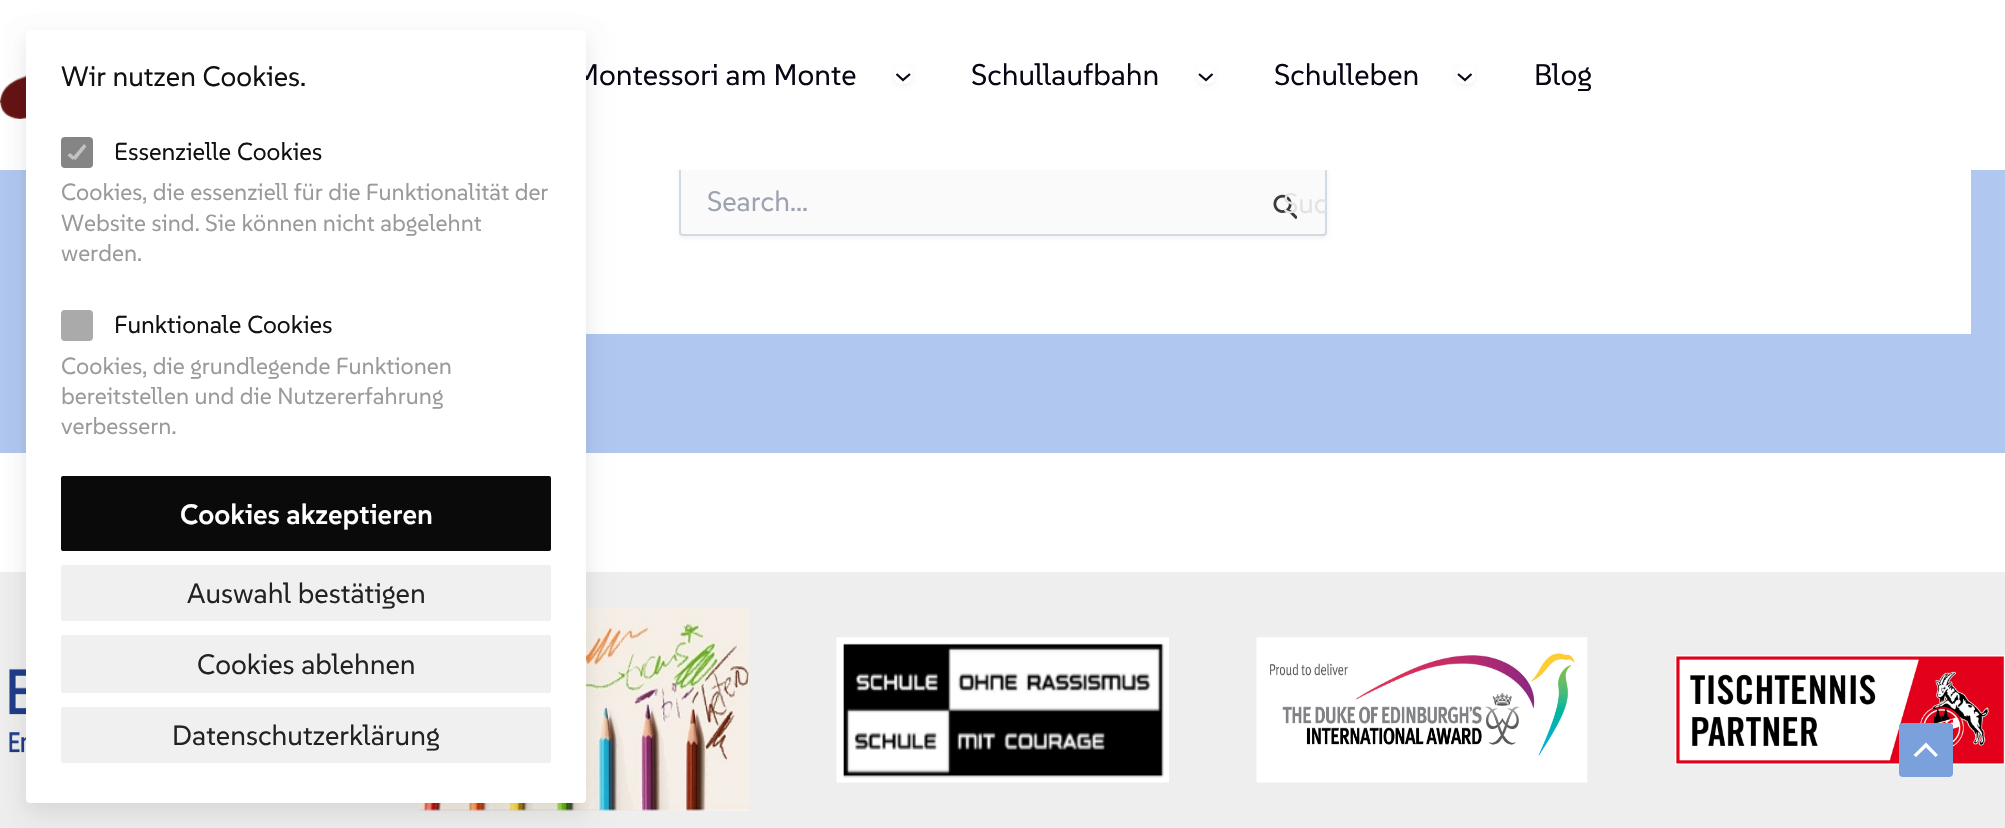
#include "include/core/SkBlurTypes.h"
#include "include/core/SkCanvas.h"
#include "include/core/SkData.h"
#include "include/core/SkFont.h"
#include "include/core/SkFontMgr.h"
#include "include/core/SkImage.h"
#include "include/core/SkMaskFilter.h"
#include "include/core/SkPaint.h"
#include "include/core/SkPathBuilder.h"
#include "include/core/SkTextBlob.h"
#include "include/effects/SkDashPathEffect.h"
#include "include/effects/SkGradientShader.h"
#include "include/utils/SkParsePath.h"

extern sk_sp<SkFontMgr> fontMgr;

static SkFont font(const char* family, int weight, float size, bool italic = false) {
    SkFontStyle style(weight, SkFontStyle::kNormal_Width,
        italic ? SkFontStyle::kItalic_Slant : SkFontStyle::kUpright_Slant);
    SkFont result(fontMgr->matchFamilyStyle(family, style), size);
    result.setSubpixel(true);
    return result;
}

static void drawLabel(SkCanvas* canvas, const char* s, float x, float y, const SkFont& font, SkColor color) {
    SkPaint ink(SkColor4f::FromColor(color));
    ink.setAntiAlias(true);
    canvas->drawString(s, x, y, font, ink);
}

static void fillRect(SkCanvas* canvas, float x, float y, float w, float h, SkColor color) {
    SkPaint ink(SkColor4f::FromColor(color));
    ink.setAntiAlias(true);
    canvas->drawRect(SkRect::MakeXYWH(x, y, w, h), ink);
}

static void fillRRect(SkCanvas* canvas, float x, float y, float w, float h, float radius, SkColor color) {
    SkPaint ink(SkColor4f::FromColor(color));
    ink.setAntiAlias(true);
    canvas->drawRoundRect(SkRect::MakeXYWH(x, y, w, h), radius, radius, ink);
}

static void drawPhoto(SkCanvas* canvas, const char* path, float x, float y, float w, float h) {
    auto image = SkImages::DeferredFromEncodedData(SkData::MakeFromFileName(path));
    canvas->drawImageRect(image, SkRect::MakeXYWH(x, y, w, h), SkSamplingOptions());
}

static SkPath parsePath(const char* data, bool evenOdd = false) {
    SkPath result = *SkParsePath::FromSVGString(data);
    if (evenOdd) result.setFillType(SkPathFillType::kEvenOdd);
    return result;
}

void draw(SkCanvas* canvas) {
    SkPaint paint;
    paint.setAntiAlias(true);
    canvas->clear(0xFFB0C7F0);
    fillRect(canvas, 586, 170, 1385, 164, 0xFFFFFFFF);
    paint.setColor(0x0D000000);
    paint.setMaskFilter(SkMaskFilter::MakeBlur(kNormal_SkBlurStyle, 2));
    canvas->drawRoundRect(SkRect::MakeXYWH(679, 168, 648, 70), 4, 4, paint);
    paint.setMaskFilter(nullptr);
    paint.setColor(0xFFFAFAFA);
    canvas->drawRoundRect(SkRect::MakeXYWH(680, 167, 646, 68), 3, 3, paint);
    paint.setStroke(true);
    paint.setStrokeWidth(2);
    paint.setColor(0xFFD1DAE5);
    canvas->drawRoundRect(SkRect::MakeXYWH(680, 167, 646, 68), 3, 3, paint);
    fillRect(canvas, 0, 0, 2005, 170, 0xFFFFFFFF);
    drawPhoto(canvas, "assets/img1.png", 0, 75, 26, 44);
    fillRect(canvas, 0, 453, 2005, 119, 0xFFFFFFFF);
    fillRect(canvas, 0, 572, 2005, 256, 0xFFEEEEEE);
    drawPhoto(canvas, "assets/img3.png", 9, 668, 17, 85);
    drawPhoto(canvas, "assets/img4.png", 418, 607, 331, 204);
    paint.setStroke(false);
    paint.setColor(0x0D000000);
    paint.setMaskFilter(SkMaskFilter::MakeBlur(kNormal_SkBlurStyle, 13));
    canvas->drawRoundRect(SkRect::MakeXYWH(26, 44, 560, 773), 4, 4, paint);
    paint.setMaskFilter(nullptr);
    paint.setMaskFilter(SkMaskFilter::MakeBlur(kNormal_SkBlurStyle, 9));
    canvas->drawRoundRect(SkRect::MakeXYWH(26, 35, 560, 774), 4, 4, paint);
    paint.setMaskFilter(nullptr);
    SkFont font1 = font("SUSE", 400, 29.75f);
    drawLabel(canvas, "Montessori am Monte", 575, 85, font1, 0xFF070614);
    fillRRect(canvas, 26, 30, 560, 773, 4, 0xFFFFFFFF);
    SkFont font2 = font("SUSE", 400, 28);
    drawLabel(canvas, "Wir nutzen Cookies.", 61, 86, font2, 0xFF111111);
    fillRRect(canvas, 61, 137, 32, 31, 4, 0xFF858585);
    SkFont font3 = font("SUSE", 400, 24.5f);
    drawLabel(canvas, "Essenzielle Cookies", 114, 160, font3, 0xFF111111);
    paint.setColor(0xFFC2C2C2);
    canvas->drawPath(parsePath("M72.5 157.5L84 144L86.5 146.5L75.5 160Z"), paint);
    canvas->drawPath(parsePath("M67.5 155.5L70 153L75 157.5L73 160Z"), paint);
    SkFont font4 = font("SUSE", 400, 23.3f);
    drawLabel(canvas, "Cookies, die essenziell für die Funktionalität der", 61, 200, font4, 0xFF9A9A9A);
    drawLabel(canvas, "Website sind. Sie können nicht abgelehnt", 61, 231, font4, 0xFF9A9A9A);
    drawLabel(canvas, "werden.", 61, 261, font4, 0xFF9A9A9A);
    fillRRect(canvas, 61, 310, 32, 31, 4, 0xFFAAAAAA);
    drawLabel(canvas, "Funktionale Cookies", 114, 333, font3, 0xFF111111);
    drawLabel(canvas, "Cookies, die grundlegende Funktionen", 61, 374, font4, 0xFF9A9A9A);
    drawLabel(canvas, "bereitstellen und die Nutzererfahrung", 61, 404, font4, 0xFF9A9A9A);
    drawLabel(canvas, "verbessern.", 61, 434, font4, 0xFF9A9A9A);
    fillRRect(canvas, 61, 476, 490, 75, 2, 0xFF0A0A0A);
    SkFont font5 = font("SUSE", 600, 28);
    drawLabel(canvas, "Cookies akzeptieren", 180, 524, font5, 0xFFFFFFFF);
    fillRRect(canvas, 61, 565, 490, 56, 2, 0xFFF0F0F0);
    drawLabel(canvas, "Auswahl bestätigen", 187, 603, font2, 0xFF222222);
    fillRRect(canvas, 61, 635, 490, 58, 2, 0xFFF0F0F0);
    drawLabel(canvas, "Cookies ablehnen", 197, 674, font2, 0xFF222222);
    fillRRect(canvas, 61, 707, 490, 56, 2, 0xFFF0F0F0);
    drawLabel(canvas, "Datenschutzerklärung", 172, 745, font2, 0xFF222222);
    paint.setColor(0x0D000000);
    paint.setMaskFilter(SkMaskFilter::MakeBlur(kNormal_SkBlurStyle, 2));
    canvas->drawRoundRect(SkRect::MakeXYWH(894, 67, 18, 19), 7, 7, paint);
    paint.setMaskFilter(nullptr);
    fillRRect(canvas, 894, 65, 18, 19, 7, 0xFFFFFFFF);
    paint.setStroke(true);
    paint.setStrokeWidth(2.2f);
    paint.setColor(0xFF070614);
    canvas->drawPath(parsePath("M896.5 74L903 80L910 74"), paint);
    drawLabel(canvas, "Schullaufbahn", 971, 85, font1, 0xFF070614);
    paint.setStroke(false);
    paint.setColor(0x0D000000);
    paint.setMaskFilter(SkMaskFilter::MakeBlur(kNormal_SkBlurStyle, 2));
    canvas->drawRoundRect(SkRect::MakeXYWH(1197, 67, 18, 19), 7, 7, paint);
    paint.setMaskFilter(nullptr);
    fillRRect(canvas, 1197, 65, 18, 19, 7, 0xFFFFFFFF);
    paint.setStroke(true);
    paint.setColor(0xFF070614);
    canvas->drawPath(parsePath("M1199 74L1206 80L1212.5 74"), paint);
    drawLabel(canvas, "Schulleben", 1274, 85, font1, 0xFF070614);
    paint.setStroke(false);
    paint.setColor(0x0D000000);
    paint.setMaskFilter(SkMaskFilter::MakeBlur(kNormal_SkBlurStyle, 2));
    canvas->drawRoundRect(SkRect::MakeXYWH(1456, 67, 19, 19), 7, 7, paint);
    paint.setMaskFilter(nullptr);
    fillRRect(canvas, 1456, 65, 19, 19, 7, 0xFFFFFFFF);
    paint.setStroke(true);
    paint.setColor(0xFF070614);
    canvas->drawPath(parsePath("M1458 74L1465 80L1471.5 74"), paint);
    drawLabel(canvas, "Blog", 1534, 85, font1, 0xFF070614);
    drawLabel(canvas, "Search...", 707, 211, font2, 0xFF9CA3AF);
    drawPhoto(canvas, "assets/img2.png", 1273, 194, 24, 26);
    drawLabel(canvas, "Suc", 1283, 213, font2, 0xFFE2E3E3);
    drawPhoto(canvas, "assets/img5.png", 836, 637, 333, 146);
    drawPhoto(canvas, "assets/img6.png", 1256, 637, 332, 146);
    drawPhoto(canvas, "assets/img7.png", 1675, 655, 330, 110);
    fillRRect(canvas, 1899, 723, 54, 54, 4, 0xFF7AA1DB);
    paint.setStroke(false);
    paint.setColor(0xFFFFFFFF);
    canvas->drawPath(parsePath("M1938 755L1926 742.5L1913.5 755L1916 757L1926 747.5L1935.5 757Z"), paint);
}
